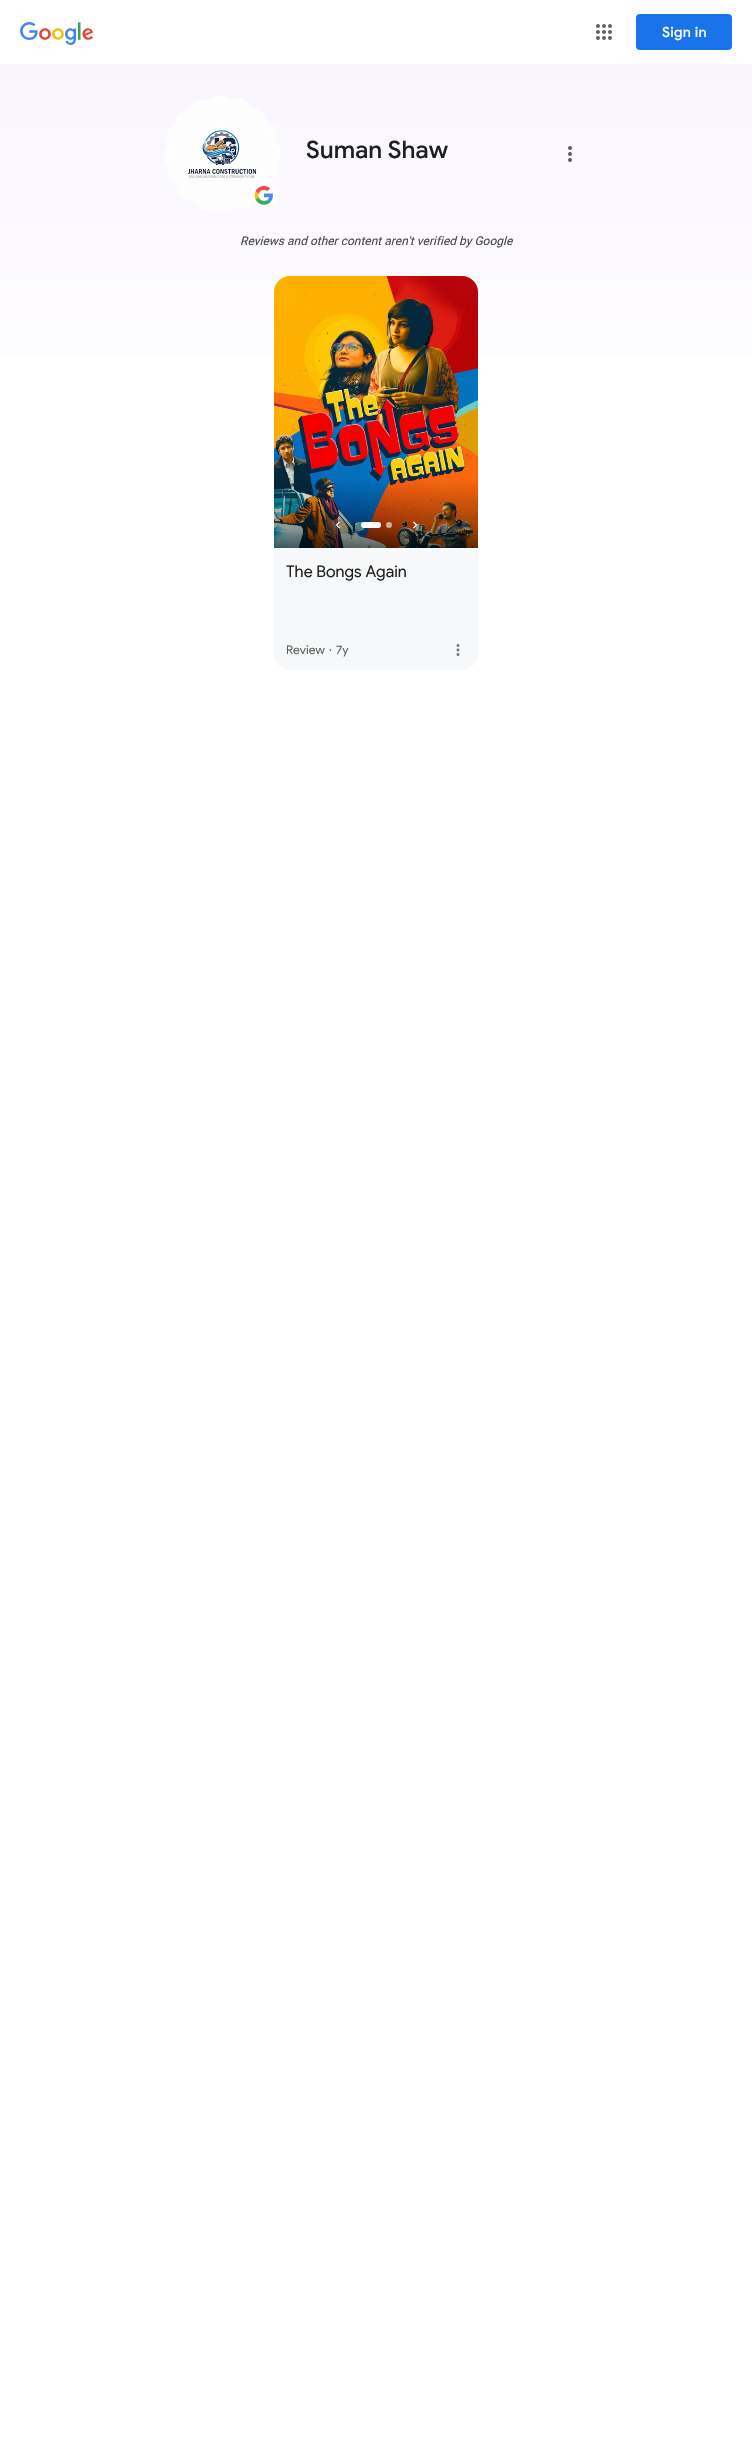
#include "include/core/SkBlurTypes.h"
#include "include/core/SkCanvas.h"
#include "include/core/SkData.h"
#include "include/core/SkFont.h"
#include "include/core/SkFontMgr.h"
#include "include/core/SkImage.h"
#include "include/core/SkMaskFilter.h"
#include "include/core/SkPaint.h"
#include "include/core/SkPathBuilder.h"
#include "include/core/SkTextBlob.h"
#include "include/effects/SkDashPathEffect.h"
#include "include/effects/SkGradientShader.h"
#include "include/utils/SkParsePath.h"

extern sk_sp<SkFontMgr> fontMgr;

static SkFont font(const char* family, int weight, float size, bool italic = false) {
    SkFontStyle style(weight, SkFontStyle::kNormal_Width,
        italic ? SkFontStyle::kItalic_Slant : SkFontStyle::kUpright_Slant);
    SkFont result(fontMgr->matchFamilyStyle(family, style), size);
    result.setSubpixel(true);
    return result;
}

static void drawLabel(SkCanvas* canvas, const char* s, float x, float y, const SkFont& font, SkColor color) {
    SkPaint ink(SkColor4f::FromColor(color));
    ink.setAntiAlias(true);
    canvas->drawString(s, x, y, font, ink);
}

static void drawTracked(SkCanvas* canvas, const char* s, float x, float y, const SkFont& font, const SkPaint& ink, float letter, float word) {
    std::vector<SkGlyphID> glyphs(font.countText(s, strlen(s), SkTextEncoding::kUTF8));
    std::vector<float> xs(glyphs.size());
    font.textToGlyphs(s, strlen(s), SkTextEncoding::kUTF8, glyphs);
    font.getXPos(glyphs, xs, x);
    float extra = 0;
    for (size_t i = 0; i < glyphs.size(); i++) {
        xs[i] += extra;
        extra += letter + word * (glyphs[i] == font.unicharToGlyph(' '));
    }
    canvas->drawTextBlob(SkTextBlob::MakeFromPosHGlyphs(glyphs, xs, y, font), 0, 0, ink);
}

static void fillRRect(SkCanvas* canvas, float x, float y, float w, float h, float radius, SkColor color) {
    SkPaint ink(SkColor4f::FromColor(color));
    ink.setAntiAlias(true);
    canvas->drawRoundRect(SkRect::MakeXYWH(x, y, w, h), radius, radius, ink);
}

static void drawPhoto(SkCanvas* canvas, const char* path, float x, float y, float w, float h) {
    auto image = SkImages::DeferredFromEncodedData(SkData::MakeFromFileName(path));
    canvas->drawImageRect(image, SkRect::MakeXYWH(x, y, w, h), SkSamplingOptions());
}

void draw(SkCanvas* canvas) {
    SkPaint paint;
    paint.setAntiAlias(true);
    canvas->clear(0xFFFFFFFF);
    drawPhoto(canvas, "assets/img1.png", 20, 22, 74, 23);
    drawPhoto(canvas, "assets/img2.png", 596, 24, 16, 16);
    fillRRect(canvas, 636, 14, 96, 36, 4, 0xFF1A73E8);
    SkFont font1 = font("Google Sans", 500, 14);
    paint.setColor(0xFFFFFFFF);
    drawTracked(canvas, "Sign in", 662, 37, font1, paint, 0.25f, 0);
    {
        const SkColor colors[] = {0xFFF9F5FF, 0xFFFFFFFF};
        const float stops[] = {0, 1};
        const SkPoint ends[] = {{376, 64}, {376, 454}};
        paint.setShader(SkGradientShader::MakeLinear(ends, colors, stops, 2, SkTileMode::kClamp));
        paint.setAlpha(255);
    }
    canvas->drawRect(SkRect::MakeXYWH(0, 64, 752, 292), paint);
    drawPhoto(canvas, "assets/img3.png", 163, 95, 118, 117);
    drawPhoto(canvas, "assets/img4.png", 252, 183, 26, 26);
    SkFont font2 = font("Google Sans", 500, 24);
    drawLabel(canvas, "Suman Shaw", 306, 158, font2, 0xFF1F1F1F);
    drawPhoto(canvas, "assets/img5.png", 568, 146, 4, 16);
    SkFont font3 = font("Roboto", 400, 12, true);
    drawLabel(canvas, "Reviews and other content aren't verified by Google", 240, 245, font3, 0xFF474747);
    fillRRect(canvas, 274, 276, 204, 394, 16, 0xFFF7F8F9);
    drawPhoto(canvas, "assets/img6.png", 274, 276, 204, 272);
    drawPhoto(canvas, "assets/img7.png", 335, 521, 5, 8);
    fillRRect(canvas, 361, 522, 20, 6, 3, 0xFFFFFFFF);
    paint.setShader(nullptr);
    paint.setColor(0x99FFFFFF);
    canvas->drawCircle(389, 525, 3, paint);
    drawPhoto(canvas, "assets/img8.png", 413, 521, 5, 8);
    SkFont font4 = font("Google Sans", 400, 16);
    drawLabel(canvas, "The Bongs Again", 286, 577, font4, 0xFF1F1F1F);
    SkFont font5 = font("Google Sans", 400, 12);
    drawLabel(canvas, "Review", 286, 654, font5, 0xFF5E5E5E);
    drawLabel(canvas, "·", 329, 654, font5, 0xFF5E5E5E);
    drawLabel(canvas, "7y", 336, 654, font5, 0xFF5E5E5E);
    drawPhoto(canvas, "assets/img9.png", 456, 644, 4, 12);
}
